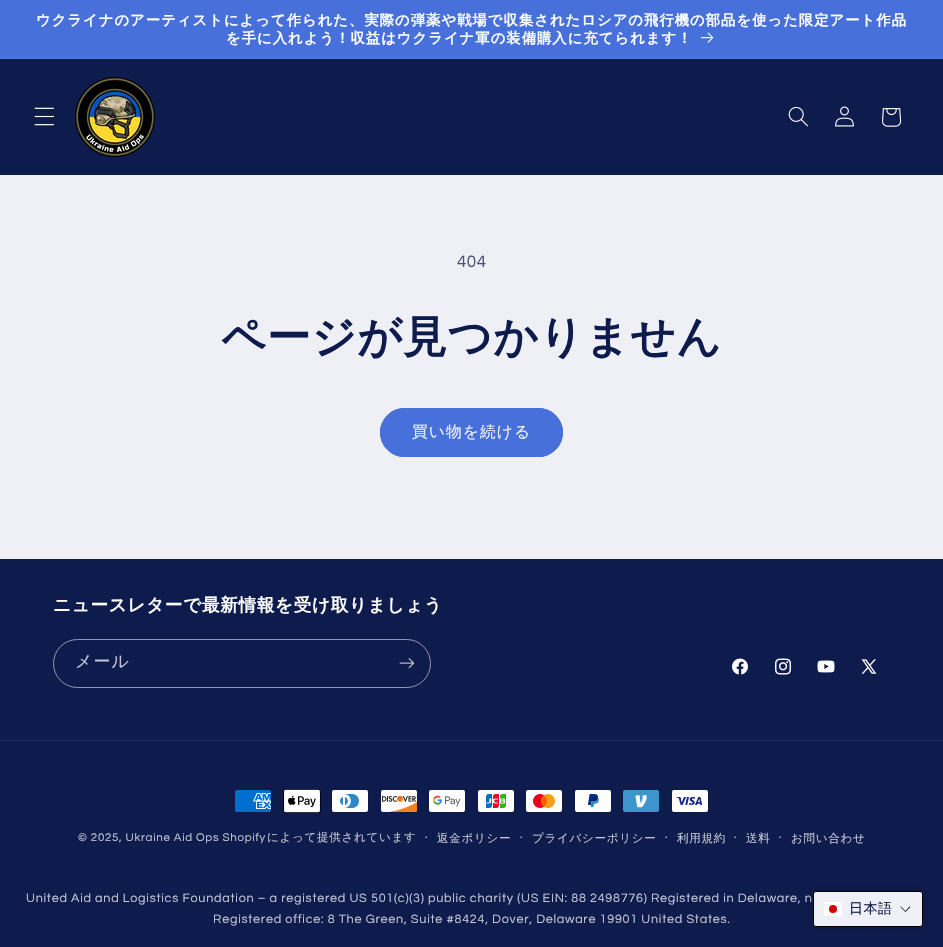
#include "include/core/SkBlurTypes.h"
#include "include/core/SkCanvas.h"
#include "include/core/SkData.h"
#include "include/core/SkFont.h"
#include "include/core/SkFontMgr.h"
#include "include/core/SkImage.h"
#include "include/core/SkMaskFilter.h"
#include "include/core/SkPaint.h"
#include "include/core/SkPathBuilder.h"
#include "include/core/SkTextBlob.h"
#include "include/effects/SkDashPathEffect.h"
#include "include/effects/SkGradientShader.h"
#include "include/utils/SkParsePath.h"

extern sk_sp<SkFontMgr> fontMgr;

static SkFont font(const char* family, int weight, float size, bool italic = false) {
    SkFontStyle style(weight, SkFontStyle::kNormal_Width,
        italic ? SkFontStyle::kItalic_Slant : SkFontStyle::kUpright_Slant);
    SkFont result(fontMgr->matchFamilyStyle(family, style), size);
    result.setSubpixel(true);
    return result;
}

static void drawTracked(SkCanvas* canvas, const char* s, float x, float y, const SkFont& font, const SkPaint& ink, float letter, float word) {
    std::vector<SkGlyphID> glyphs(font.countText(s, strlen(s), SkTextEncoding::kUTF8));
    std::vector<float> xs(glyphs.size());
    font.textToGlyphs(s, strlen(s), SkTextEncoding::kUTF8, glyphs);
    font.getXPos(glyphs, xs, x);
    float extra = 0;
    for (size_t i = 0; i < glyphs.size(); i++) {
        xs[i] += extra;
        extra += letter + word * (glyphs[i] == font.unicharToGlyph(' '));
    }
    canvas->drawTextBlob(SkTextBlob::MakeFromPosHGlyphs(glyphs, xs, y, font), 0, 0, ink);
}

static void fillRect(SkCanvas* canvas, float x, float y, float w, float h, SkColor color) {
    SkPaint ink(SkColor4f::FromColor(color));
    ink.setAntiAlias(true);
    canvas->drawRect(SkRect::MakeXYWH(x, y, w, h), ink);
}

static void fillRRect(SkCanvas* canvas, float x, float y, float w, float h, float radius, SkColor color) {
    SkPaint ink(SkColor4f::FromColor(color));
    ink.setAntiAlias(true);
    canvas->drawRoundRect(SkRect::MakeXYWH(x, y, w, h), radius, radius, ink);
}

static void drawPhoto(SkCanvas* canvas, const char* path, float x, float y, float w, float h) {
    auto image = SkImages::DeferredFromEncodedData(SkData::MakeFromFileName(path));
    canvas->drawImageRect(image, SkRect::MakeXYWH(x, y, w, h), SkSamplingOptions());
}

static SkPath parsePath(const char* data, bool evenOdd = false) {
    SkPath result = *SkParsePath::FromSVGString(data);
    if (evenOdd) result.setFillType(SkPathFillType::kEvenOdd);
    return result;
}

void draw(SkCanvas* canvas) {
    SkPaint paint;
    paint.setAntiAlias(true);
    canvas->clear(0xFFEFF0F5);
    fillRect(canvas, 0, 0, 943, 58, 0xFF4770DB);
    fillRect(canvas, 0, 58, 943, 1, 0xFF567BDE);
    SkFont font1 = font("WenQuanYi Zen Hei", 700, 14.3f);
    paint.setColor(0xFFFFFFFF);
    drawTracked(canvas, "ウクライナのアーティストによって作られた、実際の弾薬や戦場で収集されたロシアの飛行機の部品を使った限定アート作品", 36, 25, font1, paint, 1.05f, 0);
    drawTracked(canvas, "を手に入れよう！収益はウクライナ軍の装備購入に充てられます！", 226, 43, font1, paint, 1.05f, 0);
    drawPhoto(canvas, "assets/img1.png", 701, 32, 13, 11);
    fillRect(canvas, 0, 59, 943, 116, 0xFF0E1B4D);
    drawPhoto(canvas, "assets/img2.png", 34, 107, 20, 19);
    drawPhoto(canvas, "assets/img3.png", 75, 77, 80, 80);
    drawPhoto(canvas, "assets/img4.png", 788, 106, 20, 21);
    drawPhoto(canvas, "assets/img5.png", 835, 106, 19, 21);
    drawPhoto(canvas, "assets/img6.png", 882, 108, 20, 19);
    SkFont font2 = font("Questrial", 400, 17);
    paint.setColor(0xFF465077);
    drawTracked(canvas, "404", 457, 267, font2, paint, 0.5f, 0);
    SkFont font3 = font("WenQuanYi Zen Hei", 700, 44);
    paint.setColor(0xFF0E1B4D);
    drawTracked(canvas, "ページが見つかりません", 221, 352, font3, paint, 0.7f, 0);
    fillRRect(canvas, 380, 408, 183, 49, 24.5f, 0xFF4770DB);
    paint.setStroke(true);
    paint.setStrokeWidth(1);
    paint.setColor(0xFF4770DB);
    canvas->drawRoundRect(SkRect::MakeXYWH(380.5f, 408.5f, 182, 48), 24, 24, paint);
    SkFont font4 = font("WenQuanYi Zen Hei", 500, 15.75f);
    paint.setStroke(false);
    paint.setColor(0xFFEFF0F5);
    drawTracked(canvas, "買い物を続ける", 412, 437, font4, paint, 1.05f, 0);
    fillRect(canvas, 0, 559, 943, 388, 0xFF0E1B4D);
    SkFont font5 = font("WenQuanYi Zen Hei", 700, 17.6f);
    paint.setColor(0xFFFFFFFF);
    drawTracked(canvas, "ニュースレターで最新情報を受け取りましょう", 53, 611, font5, paint, 0.7f, 0);
    paint.setStroke(true);
    paint.setColor(0xFF9398AF);
    canvas->drawRoundRect(SkRect::MakeXYWH(53.5f, 639.5f, 377, 48), 24, 24, paint);
    SkFont font6 = font("WenQuanYi Zen Hei", 500, 17);
    paint.setStroke(false);
    paint.setColor(0xFFC3C6D3);
    drawTracked(canvas, "メール", 75, 667, font6, paint, 1.05f, 0);
    drawPhoto(canvas, "assets/img7.png", 399, 658, 15, 11);
    drawPhoto(canvas, "assets/img8.png", 732, 658, 16, 17);
    drawPhoto(canvas, "assets/img9.png", 775, 658, 16, 17);
    drawPhoto(canvas, "assets/img10.png", 817, 660, 18, 13);
    drawPhoto(canvas, "assets/img11.png", 861, 659, 16, 15);
    fillRect(canvas, 0, 740, 943, 1, 0xFF212D5B);
    drawPhoto(canvas, "assets/img12.png", 234, 789, 38, 24);
    drawPhoto(canvas, "assets/img13.png", 283, 789, 38, 24);
    drawPhoto(canvas, "assets/img14.png", 331, 789, 38, 24);
    drawPhoto(canvas, "assets/img15.png", 380, 789, 38, 24);
    drawPhoto(canvas, "assets/img16.png", 428, 789, 38, 24);
    drawPhoto(canvas, "assets/img17.png", 477, 789, 38, 24);
    drawPhoto(canvas, "assets/img18.png", 525, 789, 38, 24);
    drawPhoto(canvas, "assets/img19.png", 574, 789, 38, 24);
    drawPhoto(canvas, "assets/img20.png", 622, 789, 38, 24);
    drawPhoto(canvas, "assets/img21.png", 671, 789, 38, 24);
    SkFont font7 = font("Questrial", 400, 11.5f);
    drawTracked(canvas, "© 2025, Ukraine Aid Ops Shopify", 78, 841, font7, paint, 0.73f, 0);
    SkFont font8 = font("WenQuanYi Zen Hei", 500, 11.5f);
    drawTracked(canvas, "によって提供されています", 267, 841, font8, paint, 0.73f, 0);
    SkFont font9 = font("Questrial", 400, 12.6f);
    drawTracked(canvas, "·", 425, 841, font9, paint, 0.73f, 0);
    drawTracked(canvas, "返金ポリシー", 437, 842, font8, paint, 0.73f, 0);
    drawTracked(canvas, "·", 520, 841, font9, paint, 0.73f, 0);
    drawTracked(canvas, "プライバシーポリシー", 532, 842, font8, paint, 0.73f, 0);
    drawTracked(canvas, "·", 665, 841, font9, paint, 0.73f, 0);
    drawTracked(canvas, "利用規約", 677, 842, font8, paint, 0.73f, 0);
    drawTracked(canvas, "·", 734, 841, font9, paint, 0.73f, 0);
    drawTracked(canvas, "送料", 746, 842, font8, paint, 0.73f, 0);
    drawTracked(canvas, "·", 779, 841, font9, paint, 0.73f, 0);
    drawTracked(canvas, "お問い合わせ", 791, 842, font8, paint, 0.73f, 0);
    drawTracked(canvas, "United Aid and Logistics Foundation – a registered US 501(c)(3) public charity (US EIN: 88 2498776) Registered in Delaware, n", 26, 902, font9, paint, 0.73f, 0);
    drawTracked(canvas, "Registered office: 8 The Green, Suite #8424, Dover, Delaware 19901 United States.", 213, 923, font9, paint, 0.73f, 0);
    paint.setColor(0x26000000);
    paint.setMaskFilter(SkMaskFilter::MakeBlur(kNormal_SkBlurStyle, 5));
    canvas->drawRoundRect(SkRect::MakeXYWH(813, 891, 110, 36), 3, 3, paint);
    paint.setMaskFilter(nullptr);
    paint.setColor(0xFFEFF0F5);
    canvas->drawRoundRect(SkRect::MakeXYWH(813.5f, 891.5f, 109, 35), 2.5f, 2.5f, paint);
    paint.setStroke(true);
    paint.setColor(0xFF000000);
    canvas->drawRoundRect(SkRect::MakeXYWH(813.5f, 891.5f, 109, 35), 2.5f, 2.5f, paint);
    fillRect(canvas, 824, 902, 18, 14, 0xFFFFFFFF);
    paint.setStroke(false);
    paint.setColor(0xFFD30000);
    canvas->drawCircle(833, 909, 4, paint);
    SkFont font10 = font("WenQuanYi Zen Hei", 500, 14);
    paint.setColor(0xFF0E1B4D);
    drawTracked(canvas, "日本語", 849, 913, font10, paint, 0.5f, 0);
    paint.setColor(0xFF181819);
    canvas->drawPath(parsePath("M909.5 906.5L910.5 907L905.5 912L905 911.5Z"), paint);
    canvas->drawPath(parsePath("M901 906.5L906 911.5L905.5 912L900.5 907Z"), paint);
}
